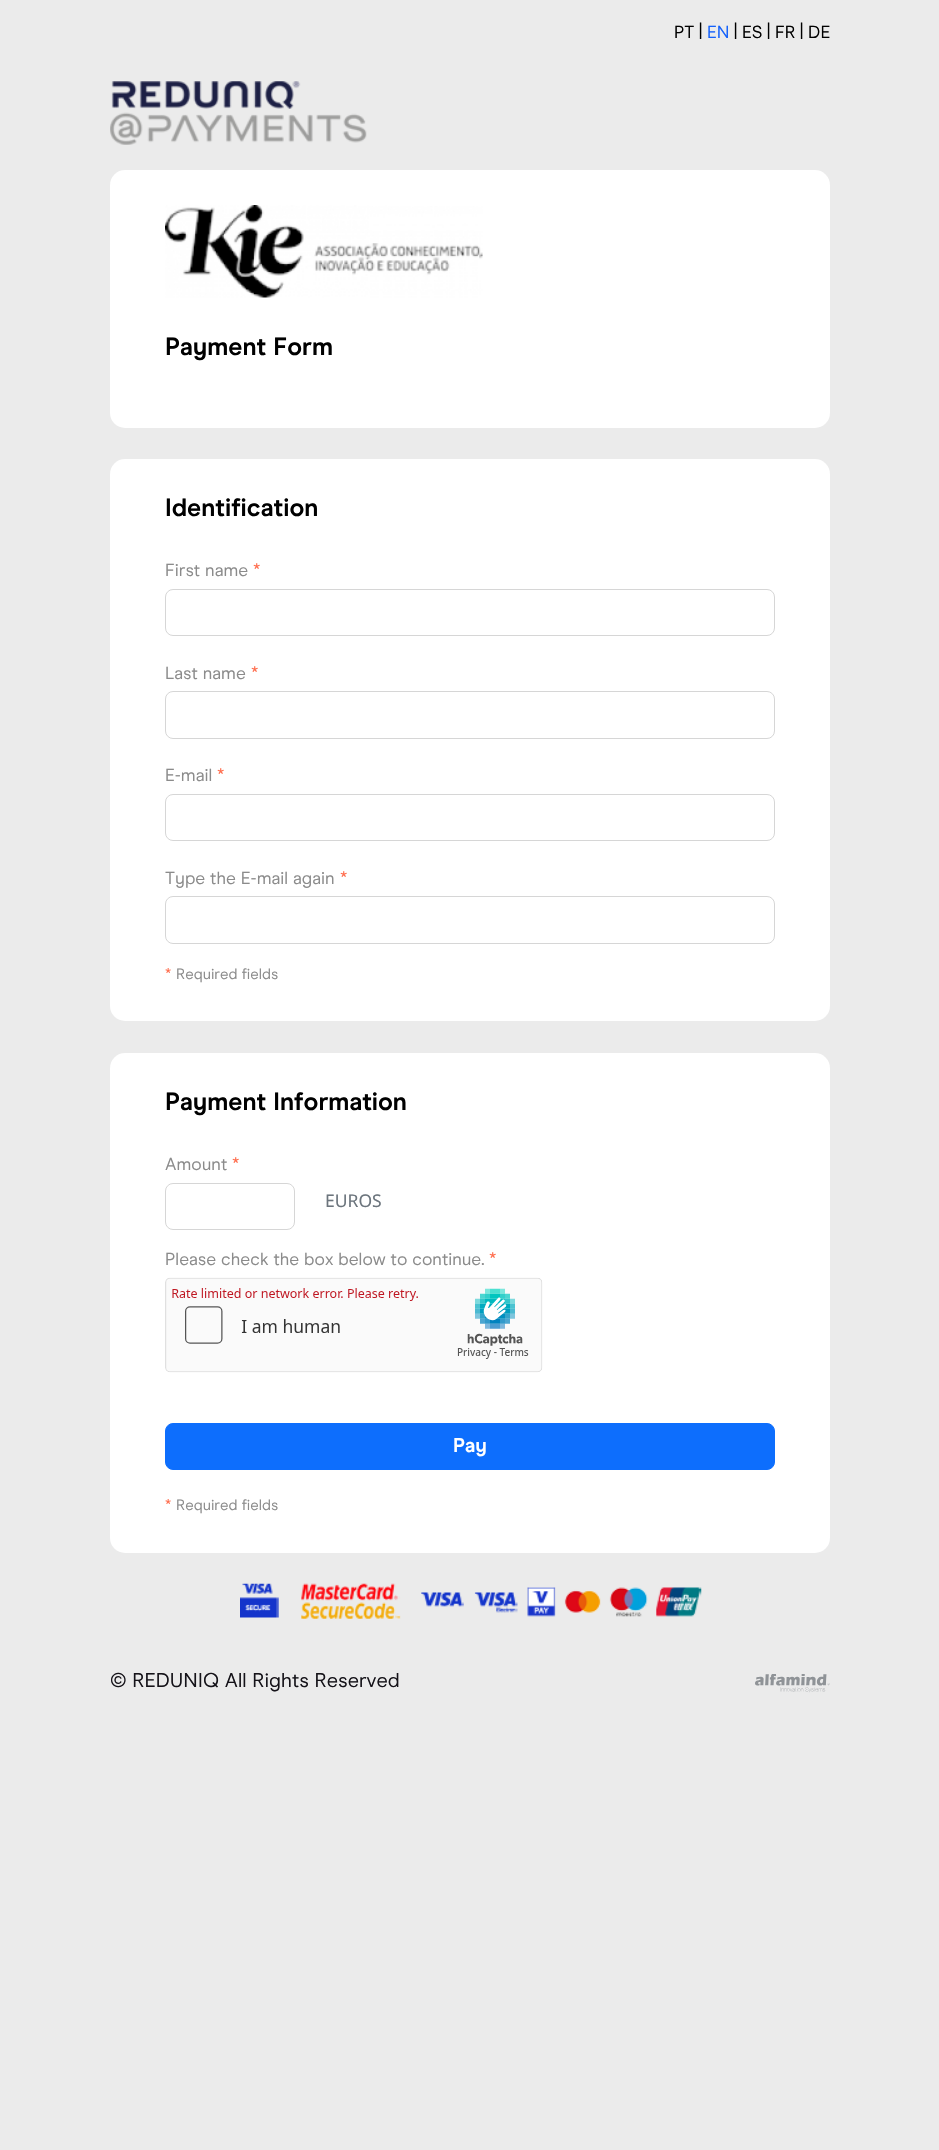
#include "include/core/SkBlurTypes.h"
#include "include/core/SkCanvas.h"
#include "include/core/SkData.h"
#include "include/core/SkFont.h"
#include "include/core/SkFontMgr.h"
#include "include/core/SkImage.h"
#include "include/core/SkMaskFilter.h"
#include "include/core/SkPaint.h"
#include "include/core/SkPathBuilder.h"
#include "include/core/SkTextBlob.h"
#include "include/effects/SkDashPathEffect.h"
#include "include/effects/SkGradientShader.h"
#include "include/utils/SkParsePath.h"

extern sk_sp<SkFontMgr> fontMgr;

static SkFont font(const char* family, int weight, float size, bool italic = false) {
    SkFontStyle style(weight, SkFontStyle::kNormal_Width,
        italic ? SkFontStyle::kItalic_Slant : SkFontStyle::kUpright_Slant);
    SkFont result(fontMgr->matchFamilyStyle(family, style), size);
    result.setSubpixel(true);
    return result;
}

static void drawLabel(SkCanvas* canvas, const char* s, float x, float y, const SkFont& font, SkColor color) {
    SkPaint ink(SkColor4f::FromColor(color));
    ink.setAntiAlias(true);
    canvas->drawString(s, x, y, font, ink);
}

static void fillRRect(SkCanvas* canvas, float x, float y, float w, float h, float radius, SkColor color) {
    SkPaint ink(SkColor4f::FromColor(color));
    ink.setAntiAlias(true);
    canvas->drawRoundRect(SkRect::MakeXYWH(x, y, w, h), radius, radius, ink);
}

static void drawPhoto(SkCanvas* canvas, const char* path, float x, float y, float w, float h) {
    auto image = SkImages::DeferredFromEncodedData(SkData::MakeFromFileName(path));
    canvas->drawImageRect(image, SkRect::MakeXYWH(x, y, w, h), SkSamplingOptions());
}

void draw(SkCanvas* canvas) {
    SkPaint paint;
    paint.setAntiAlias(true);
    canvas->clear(0xFFEBEBEB);
    SkFont font1 = font("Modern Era", 400, 17.5f);
    drawLabel(canvas, "PT", 674, 38, font1, 0xFF000000);
    drawLabel(canvas, "|", 699, 36, font1, 0xFF000000);
    drawLabel(canvas, "EN", 707, 38, font1, 0xFF1361FB);
    drawLabel(canvas, "|", 734, 36, font1, 0xFF000000);
    drawLabel(canvas, "ES", 742, 38, font1, 0xFF000000);
    drawLabel(canvas, "|", 767, 36, font1, 0xFF000000);
    drawLabel(canvas, "FR", 775, 38, font1, 0xFF000000);
    drawLabel(canvas, "|", 800, 36, font1, 0xFF000000);
    drawLabel(canvas, "DE", 808, 38, font1, 0xFF000000);
    drawPhoto(canvas, "assets/img1.png", 110, 81, 257, 64);
    fillRRect(canvas, 110, 170, 720, 258, 15, 0xFFFFFFFF);
    drawPhoto(canvas, "assets/img2.png", 165, 205, 318, 93);
    SkFont font2 = font("Modern Era", 700, 25);
    drawLabel(canvas, "Payment Form", 165, 355, font2, 0xFF000000);
    fillRRect(canvas, 110, 459, 720, 562, 15, 0xFFFFFFFF);
    drawLabel(canvas, "Identification", 165, 516, font2, 0xFF000000);
    drawLabel(canvas, "First name", 165, 576, font1, 0xFF8B8B8B);
    drawLabel(canvas, "*", 253, 576, font1, 0xFFFF6D4D);
    paint.setStroke(true);
    paint.setStrokeWidth(1);
    paint.setColor(0xFFD6D6D6);
    canvas->drawRoundRect(SkRect::MakeXYWH(165.5f, 589.5f, 609, 46), 7.5f, 7.5f, paint);
    drawLabel(canvas, "Last name", 165, 679, font1, 0xFF8B8B8B);
    drawLabel(canvas, "*", 251, 679, font1, 0xFFFF6D4D);
    canvas->drawRoundRect(SkRect::MakeXYWH(165.5f, 691.5f, 609, 47), 7.5f, 7.5f, paint);
    drawLabel(canvas, "E-mail", 165, 781, font1, 0xFF8B8B8B);
    drawLabel(canvas, "*", 217, 781, font1, 0xFFFF6D4D);
    canvas->drawRoundRect(SkRect::MakeXYWH(165.5f, 794.5f, 609, 46), 7.5f, 7.5f, paint);
    drawLabel(canvas, "Type the E-mail again", 165, 884, font1, 0xFF8B8B8B);
    drawLabel(canvas, "*", 340, 884, font1, 0xFFFF6D4D);
    canvas->drawRoundRect(SkRect::MakeXYWH(165.5f, 896.5f, 609, 47), 7.5f, 7.5f, paint);
    SkFont font3 = font("Modern Era", 400, 15);
    drawLabel(canvas, "*", 165, 979, font3, 0xFFFF6D4D);
    drawLabel(canvas, "Required fields", 176, 979, font3, 0xFF8B8B8B);
    fillRRect(canvas, 110, 1053, 720, 500, 15, 0xFFFFFFFF);
    drawLabel(canvas, "Payment Information", 165, 1110, font2, 0xFF000000);
    drawLabel(canvas, "Amount", 165, 1170, font1, 0xFF8B8B8B);
    drawLabel(canvas, "*", 232, 1170, font1, 0xFFFF6D4D);
    canvas->drawRoundRect(SkRect::MakeXYWH(165.5f, 1183.5f, 129, 46), 7.5f, 7.5f, paint);
    SkFont font4 = font("Noto Sans", 400, 17.5f);
    drawLabel(canvas, "EUROS", 325, 1207, font4, 0xFF6C757D);
    drawLabel(canvas, "Please check the box below to continue.", 165, 1265, font1, 0xFF8B8B8B);
    drawLabel(canvas, "*", 489, 1265, font1, 0xFFFF6D4D);
    drawPhoto(canvas, "assets/img3.png", 165, 1277, 378, 96);
    paint.setStroke(false);
    paint.setColor(0xFF0D6EFD);
    canvas->drawRoundRect(SkRect::MakeXYWH(165.5f, 1423.5f, 609, 46), 7.5f, 7.5f, paint);
    paint.setStroke(true);
    canvas->drawRoundRect(SkRect::MakeXYWH(165.5f, 1423.5f, 609, 46), 7.5f, 7.5f, paint);
    SkFont font5 = font("Modern Era", 700, 20);
    drawLabel(canvas, "Pay", 453, 1452, font5, 0xFFFFFFFF);
    drawLabel(canvas, "*", 165, 1510, font3, 0xFFFF6D4D);
    drawLabel(canvas, "Required fields", 176, 1510, font3, 0xFF8B8B8B);
    drawPhoto(canvas, "assets/img4.png", 240, 1583, 462, 36);
    SkFont font6 = font("Modern Era", 400, 20);
    drawLabel(canvas, "© REDUNIQ All Rights Reserved", 110, 1687, font6, 0xFF151319);
    drawPhoto(canvas, "assets/img5.png", 755, 1674, 75, 19);
}
